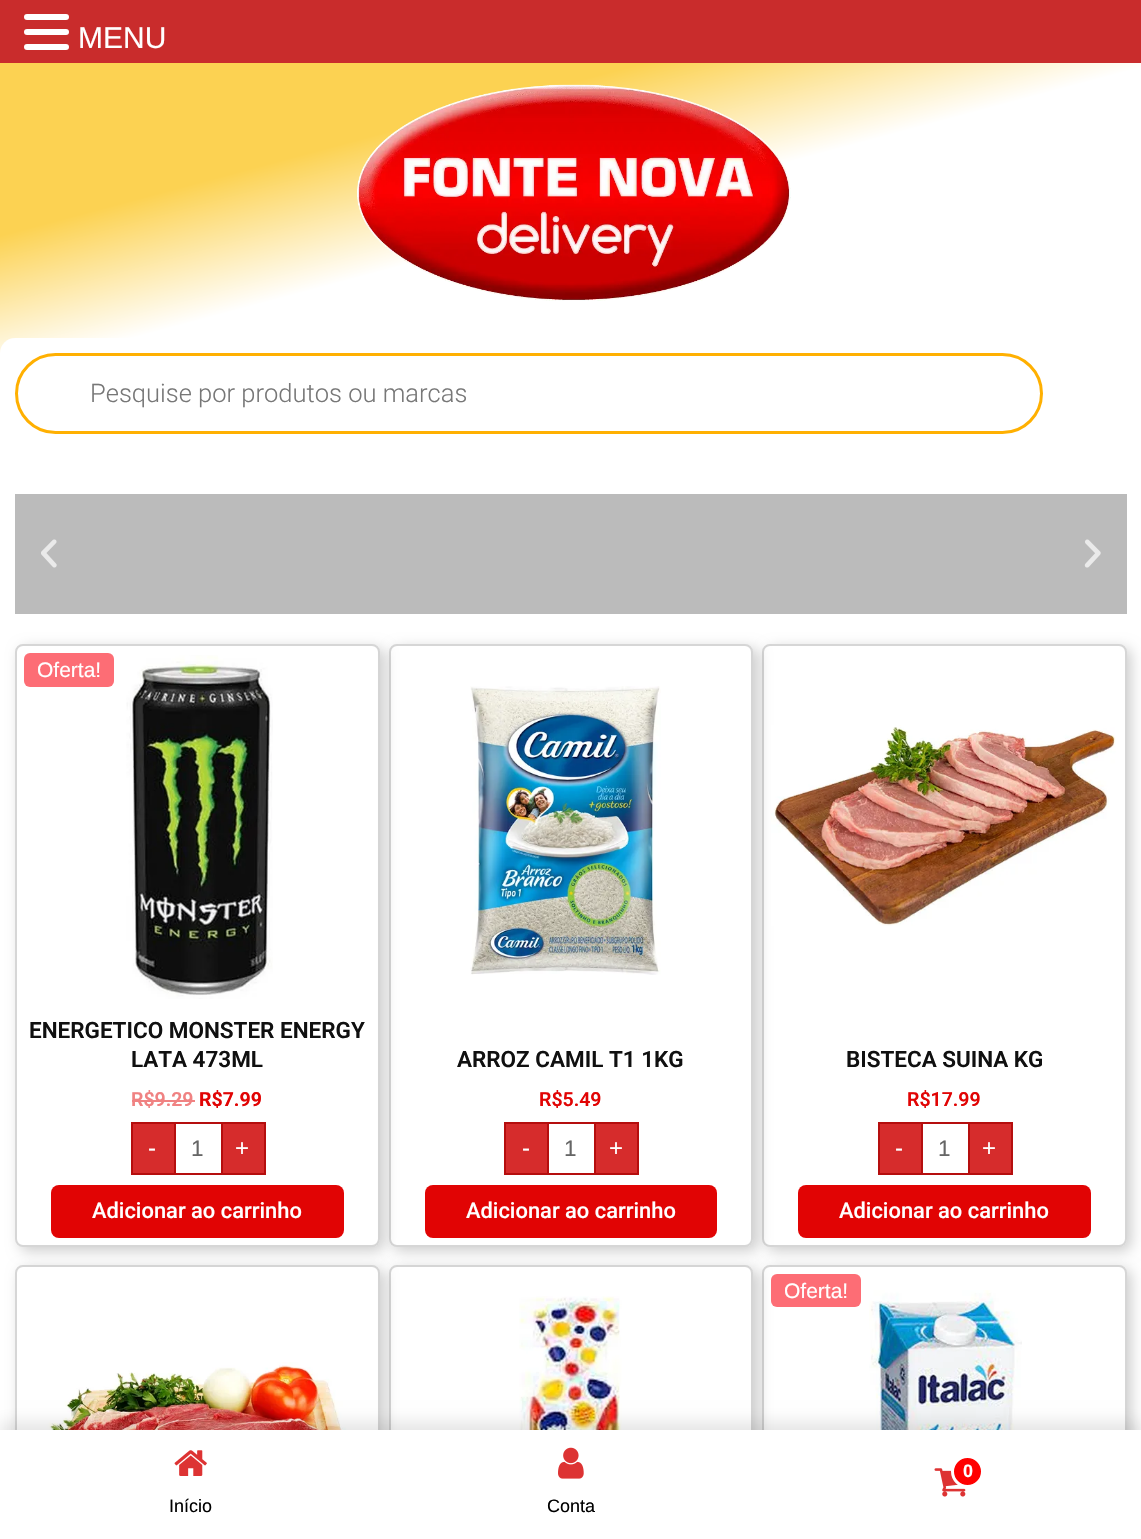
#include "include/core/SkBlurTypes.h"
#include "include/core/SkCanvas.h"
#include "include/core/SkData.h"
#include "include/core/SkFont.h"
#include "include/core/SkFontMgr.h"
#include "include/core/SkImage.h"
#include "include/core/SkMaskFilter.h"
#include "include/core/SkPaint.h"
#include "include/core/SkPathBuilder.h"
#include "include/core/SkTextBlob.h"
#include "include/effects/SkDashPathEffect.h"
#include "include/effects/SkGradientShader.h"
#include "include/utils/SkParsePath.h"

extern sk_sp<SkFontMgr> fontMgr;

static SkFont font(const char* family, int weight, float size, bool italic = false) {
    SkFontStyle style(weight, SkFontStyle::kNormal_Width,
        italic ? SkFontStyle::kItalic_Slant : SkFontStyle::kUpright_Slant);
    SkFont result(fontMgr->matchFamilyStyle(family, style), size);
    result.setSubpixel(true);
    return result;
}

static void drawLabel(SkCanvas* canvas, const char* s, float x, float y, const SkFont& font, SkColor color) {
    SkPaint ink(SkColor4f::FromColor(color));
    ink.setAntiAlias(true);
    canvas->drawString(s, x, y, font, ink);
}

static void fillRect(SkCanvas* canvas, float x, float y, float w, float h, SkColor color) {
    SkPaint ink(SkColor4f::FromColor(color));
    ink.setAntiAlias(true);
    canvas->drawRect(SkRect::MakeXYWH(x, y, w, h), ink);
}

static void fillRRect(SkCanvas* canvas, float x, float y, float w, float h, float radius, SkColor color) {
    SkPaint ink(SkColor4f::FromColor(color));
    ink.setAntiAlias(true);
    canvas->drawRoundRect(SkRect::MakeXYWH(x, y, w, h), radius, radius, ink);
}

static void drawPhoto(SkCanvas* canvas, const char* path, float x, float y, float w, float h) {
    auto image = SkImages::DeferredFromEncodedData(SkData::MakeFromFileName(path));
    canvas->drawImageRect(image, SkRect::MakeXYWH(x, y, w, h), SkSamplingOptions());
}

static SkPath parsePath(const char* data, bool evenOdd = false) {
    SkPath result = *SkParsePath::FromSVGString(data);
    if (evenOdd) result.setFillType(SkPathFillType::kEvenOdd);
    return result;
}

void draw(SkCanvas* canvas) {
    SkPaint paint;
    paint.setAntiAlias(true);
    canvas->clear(0xFFFFFFFF);
    fillRect(canvas, 0, 0, 1141, 63, 0xFFC92C2C);
    fillRRect(canvas, 24, 14, 45, 6, 3, 0xFFFFFFFF);
    fillRRect(canvas, 24, 29, 45, 6, 3, 0xFFFFFFFF);
    fillRRect(canvas, 24, 44, 45, 6, 3, 0xFFFFFFFF);
    SkFont font1 = font("Liberation Sans", 400, 30);
    drawLabel(canvas, "MENU", 78, 48, font1, 0xFFFFFFFF);
    {
        const SkColor colors[] = {0xFFFCD252, 0xFFFFFFFF};
        const float stops[] = {0.25f, 0.45f};
        const SkPoint ends[] = {{484, -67}, {657, 578}};
        paint.setShader(SkGradientShader::MakeLinear(ends, colors, stops, 2, SkTileMode::kClamp));
        paint.setAlpha(255);
    }
    canvas->drawRect(SkRect::MakeXYWH(0, 63, 1141, 309), paint);
    drawPhoto(canvas, "assets/img1.png", 357, 84, 434, 217);
    fillRRect(canvas, 0, 338, 1058, 111, 15, 0xFFFFFFFF);
    paint.setStroke(true);
    paint.setStrokeWidth(3);
    paint.setShader(nullptr);
    paint.setColor(0xFFFFB001);
    canvas->drawRoundRect(SkRect::MakeXYWH(16.5f, 354.5f, 1025, 78), 39, 39, paint);
    SkFont font2 = font("Roboto", 300, 25.5f);
    drawLabel(canvas, "Pesquise por produtos ou marcas", 90, 402, font2, 0xFF777777);
    fillRect(canvas, 15, 494, 1112, 120, 0xFFBBBBBB);
    drawPhoto(canvas, "assets/img2.png", 41, 539, 16, 29);
    drawPhoto(canvas, "assets/img3.png", 1084, 539, 17, 29);
    canvas->save();
    canvas->clipPath(parsePath("M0 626H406V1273H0ZM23 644H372C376.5 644 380 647.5 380 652V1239C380 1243.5 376.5 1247 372 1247H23C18.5 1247 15 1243.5 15 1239V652C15 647.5 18.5 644 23 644Z", true), true);
    paint.setStroke(false);
    paint.setColor(0x33000000);
    paint.setMaskFilter(SkMaskFilter::MakeBlur(kNormal_SkBlurStyle, 7));
    canvas->drawRoundRect(SkRect::MakeXYWH(20, 648, 364, 603), 8, 8, paint);
    paint.setMaskFilter(nullptr);
    canvas->restore();
    paint.setStroke(true);
    paint.setStrokeWidth(2);
    paint.setColor(0x29020101);
    canvas->drawRoundRect(SkRect::MakeXYWH(16, 645, 363, 601), 7, 7, paint);
    fillRRect(canvas, 24, 653, 90, 34, 6, 0xFFFD6D75);
    SkFont font3 = font("Liberation Sans", 400, 21);
    drawLabel(canvas, "Oferta!", 37, 677, font3, 0xFFFFFFFF);
    drawPhoto(canvas, "assets/img4.png", 126, 655, 147, 344);
    SkFont font4 = font("Roboto", 600, 22.5f);
    drawLabel(canvas, "ENERGETICO MONSTER ENERGY", 29, 1038, font4, 0xFF101010);
    drawLabel(canvas, "LATA 473ML", 131, 1067, font4, 0xFF101010);
    SkFont font5 = font("Roboto", 600, 19.5f);
    drawLabel(canvas, "R$9.29", 131, 1106, font5, 0xFFF08282);
    fillRect(canvas, 132, 1100, 63, 2, 0xFFF08282);
    SkFont font6 = font("Roboto", 700, 19.5f);
    drawLabel(canvas, "R$7.99", 199, 1106, font6, 0xFFE10404);
    paint.setStroke(false);
    paint.setColor(0xFFD62C2C);
    canvas->drawRect(SkRect::MakeXYWH(132, 1123, 43, 51), paint);
    paint.setStroke(true);
    paint.setColor(0xFFB50E0E);
    canvas->drawRect(SkRect::MakeXYWH(132, 1123, 43, 51), paint);
    SkFont font7 = font("Liberation Sans", 400, 24);
    drawLabel(canvas, "-", 148, 1156, font7, 0xFFFFFFFF);
    fillRect(canvas, 176, 1122, 45, 2, 0xFFB50E0E);
    fillRect(canvas, 176, 1173, 45, 2, 0xFFB50E0E);
    SkFont font8 = font("Liberation Sans", 400, 22.5f);
    drawLabel(canvas, "1", 191, 1156, font8, 0xFF666666);
    paint.setStroke(false);
    paint.setColor(0xFFD62C2C);
    canvas->drawRect(SkRect::MakeXYWH(222, 1123, 43, 51), paint);
    paint.setStroke(true);
    paint.setColor(0xFFB50E0E);
    canvas->drawRect(SkRect::MakeXYWH(222, 1123, 43, 51), paint);
    drawLabel(canvas, "+", 235, 1156, font7, 0xFFFFFFFF);
    fillRRect(canvas, 51, 1185, 293, 53, 8, 0xFFE10404);
    SkFont font9 = font("Roboto", 500, 21.9f);
    drawLabel(canvas, "Adicionar ao carrinho", 92, 1218, font9, 0xFFFFFFFF);
    canvas->save();
    canvas->clipPath(parsePath("M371 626H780V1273H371ZM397 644H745C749.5 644 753 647.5 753 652V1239C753 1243.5 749.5 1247 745 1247H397C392.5 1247 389 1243.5 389 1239V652C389 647.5 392.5 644 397 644Z", true), true);
    paint.setStroke(false);
    paint.setColor(0x33000000);
    paint.setMaskFilter(SkMaskFilter::MakeBlur(kNormal_SkBlurStyle, 7));
    canvas->drawRoundRect(SkRect::MakeXYWH(393, 648, 365, 603), 8, 8, paint);
    paint.setMaskFilter(nullptr);
    canvas->restore();
    paint.setStroke(true);
    paint.setColor(0x29020101);
    canvas->drawRoundRect(SkRect::MakeXYWH(390, 645, 362, 601), 7, 7, paint);
    drawPhoto(canvas, "assets/img5.png", 470, 686, 191, 289);
    drawLabel(canvas, "ARROZ CAMIL T1 1KG", 457, 1067, font4, 0xFF101010);
    drawLabel(canvas, "R$5.49", 539, 1106, font5, 0xFFE10404);
    paint.setStroke(false);
    paint.setColor(0xFFD62C2C);
    canvas->drawRect(SkRect::MakeXYWH(505, 1123, 43, 51), paint);
    paint.setStroke(true);
    paint.setColor(0xFFB50E0E);
    canvas->drawRect(SkRect::MakeXYWH(505, 1123, 43, 51), paint);
    drawLabel(canvas, "-", 522, 1156, font7, 0xFFFFFFFF);
    fillRect(canvas, 549, 1122, 45, 2, 0xFFB50E0E);
    fillRect(canvas, 549, 1173, 45, 2, 0xFFB50E0E);
    drawLabel(canvas, "1", 564, 1156, font8, 0xFF666666);
    paint.setStroke(false);
    paint.setColor(0xFFD62C2C);
    canvas->drawRect(SkRect::MakeXYWH(595, 1123, 43, 51), paint);
    paint.setStroke(true);
    paint.setColor(0xFFB50E0E);
    canvas->drawRect(SkRect::MakeXYWH(595, 1123, 43, 51), paint);
    drawLabel(canvas, "+", 609, 1156, font7, 0xFFFFFFFF);
    fillRRect(canvas, 425, 1185, 292, 53, 8, 0xFFE10404);
    drawLabel(canvas, "Adicionar ao carrinho", 466, 1218, font9, 0xFFFFFFFF);
    canvas->save();
    canvas->clipPath(parsePath("M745 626H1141V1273H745ZM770 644H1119C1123.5 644 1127 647.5 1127 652V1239C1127 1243.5 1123.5 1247 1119 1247H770C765.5 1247 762 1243.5 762 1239V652C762 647.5 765.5 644 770 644Z", true), true);
    paint.setStroke(false);
    paint.setColor(0x33000000);
    paint.setMaskFilter(SkMaskFilter::MakeBlur(kNormal_SkBlurStyle, 7));
    canvas->drawRoundRect(SkRect::MakeXYWH(767, 648, 364, 603), 8, 8, paint);
    paint.setMaskFilter(nullptr);
    canvas->restore();
    paint.setStroke(true);
    paint.setColor(0x29020101);
    canvas->drawRoundRect(SkRect::MakeXYWH(763, 645, 363, 601), 7, 7, paint);
    drawPhoto(canvas, "assets/img6.png", 771, 725, 345, 201);
    drawLabel(canvas, "BISTECA SUINA KG", 846, 1067, font4, 0xFF101010);
    drawLabel(canvas, "R$17.99", 907, 1106, font5, 0xFFE10404);
    paint.setStroke(false);
    paint.setColor(0xFFD62C2C);
    canvas->drawRect(SkRect::MakeXYWH(879, 1123, 43, 51), paint);
    paint.setStroke(true);
    paint.setColor(0xFFB50E0E);
    canvas->drawRect(SkRect::MakeXYWH(879, 1123, 43, 51), paint);
    drawLabel(canvas, "-", 895, 1156, font7, 0xFFFFFFFF);
    fillRect(canvas, 923, 1122, 45, 2, 0xFFB50E0E);
    fillRect(canvas, 923, 1173, 45, 2, 0xFFB50E0E);
    drawLabel(canvas, "1", 938, 1156, font8, 0xFF666666);
    paint.setStroke(false);
    paint.setColor(0xFFD62C2C);
    canvas->drawRect(SkRect::MakeXYWH(969, 1123, 43, 51), paint);
    paint.setStroke(true);
    paint.setColor(0xFFB50E0E);
    canvas->drawRect(SkRect::MakeXYWH(969, 1123, 43, 51), paint);
    drawLabel(canvas, "+", 982, 1156, font7, 0xFFFFFFFF);
    fillRRect(canvas, 798, 1185, 293, 53, 8, 0xFFE10404);
    drawLabel(canvas, "Adicionar ao carrinho", 839, 1218, font9, 0xFFFFFFFF);
    canvas->save();
    canvas->clipPath(parsePath("M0 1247H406V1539H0ZM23 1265H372C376.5 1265 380 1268.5 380 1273V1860C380 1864.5 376.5 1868 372 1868H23C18.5 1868 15 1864.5 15 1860V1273C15 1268.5 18.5 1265 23 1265Z", true), true);
    paint.setStroke(false);
    paint.setColor(0x33000000);
    paint.setMaskFilter(SkMaskFilter::MakeBlur(kNormal_SkBlurStyle, 7));
    canvas->drawRoundRect(SkRect::MakeXYWH(20, 1269, 364, 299), 8, 8, paint);
    paint.setMaskFilter(nullptr);
    canvas->restore();
    paint.setStroke(true);
    paint.setColor(0x29020101);
    canvas->drawRoundRect(SkRect::MakeXYWH(16, 1266, 363, 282), 7, 7, paint);
    drawPhoto(canvas, "assets/img7.png", 29, 1362, 339, 68);
    canvas->save();
    canvas->clipPath(parsePath("M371 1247H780V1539H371ZM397 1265H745C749.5 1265 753 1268.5 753 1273V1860C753 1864.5 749.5 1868 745 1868H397C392.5 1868 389 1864.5 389 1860V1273C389 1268.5 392.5 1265 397 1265Z", true), true);
    paint.setStroke(false);
    paint.setColor(0x33000000);
    paint.setMaskFilter(SkMaskFilter::MakeBlur(kNormal_SkBlurStyle, 7));
    canvas->drawRoundRect(SkRect::MakeXYWH(393, 1269, 365, 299), 8, 8, paint);
    paint.setMaskFilter(nullptr);
    canvas->restore();
    paint.setStroke(true);
    paint.setColor(0x29020101);
    canvas->drawRoundRect(SkRect::MakeXYWH(390, 1266, 362, 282), 7, 7, paint);
    drawPhoto(canvas, "assets/img8.png", 519, 1296, 103, 134);
    canvas->save();
    canvas->clipPath(parsePath("M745 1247H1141V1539H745ZM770 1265H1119C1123.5 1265 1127 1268.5 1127 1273V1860C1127 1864.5 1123.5 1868 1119 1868H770C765.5 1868 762 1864.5 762 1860V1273C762 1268.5 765.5 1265 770 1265Z", true), true);
    paint.setStroke(false);
    paint.setColor(0x33000000);
    paint.setMaskFilter(SkMaskFilter::MakeBlur(kNormal_SkBlurStyle, 7));
    canvas->drawRoundRect(SkRect::MakeXYWH(767, 1269, 364, 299), 8, 8, paint);
    paint.setMaskFilter(nullptr);
    canvas->restore();
    paint.setStroke(true);
    paint.setColor(0x29020101);
    canvas->drawRoundRect(SkRect::MakeXYWH(763, 1266, 363, 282), 7, 7, paint);
    fillRRect(canvas, 771, 1274, 90, 33, 6, 0xFFFD6D75);
    drawLabel(canvas, "Oferta!", 784, 1298, font3, 0xFFFFFFFF);
    drawPhoto(canvas, "assets/img9.png", 869, 1290, 153, 140);
    paint.setStroke(false);
    paint.setColor(0x1A000000);
    paint.setMaskFilter(SkMaskFilter::MakeBlur(kNormal_SkBlurStyle, 7.5f));
    canvas->drawRect(SkRect::MakeXYWH(0, 1422, 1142, 110), paint);
    paint.setMaskFilter(nullptr);
    fillRect(canvas, 0, 1430, 1141, 109, 0xFFFFFFFF);
    drawPhoto(canvas, "assets/img10.png", 934, 1468, 32, 29);
    paint.setColor(0xFFFF0000);
    canvas->drawCircle(967.5f, 1471.5f, 15, paint);
    paint.setStroke(true);
    paint.setStrokeWidth(3);
    paint.setColor(0xFFFFFFFF);
    canvas->drawCircle(967.5f, 1471.5f, 15, paint);
    SkFont font10 = font("Liberation Sans", 700, 18);
    drawLabel(canvas, "0", 963, 1477, font10, 0xFFFFFFFF);
    drawPhoto(canvas, "assets/img11.png", 174, 1450, 33, 26);
    SkFont font11 = font("Liberation Sans", 400, 18);
    drawLabel(canvas, "Início", 169, 1512, font11, 0xFF000000);
    drawPhoto(canvas, "assets/img12.png", 558, 1447, 26, 32);
    drawLabel(canvas, "Conta", 547, 1512, font11, 0xFF000000);
}
